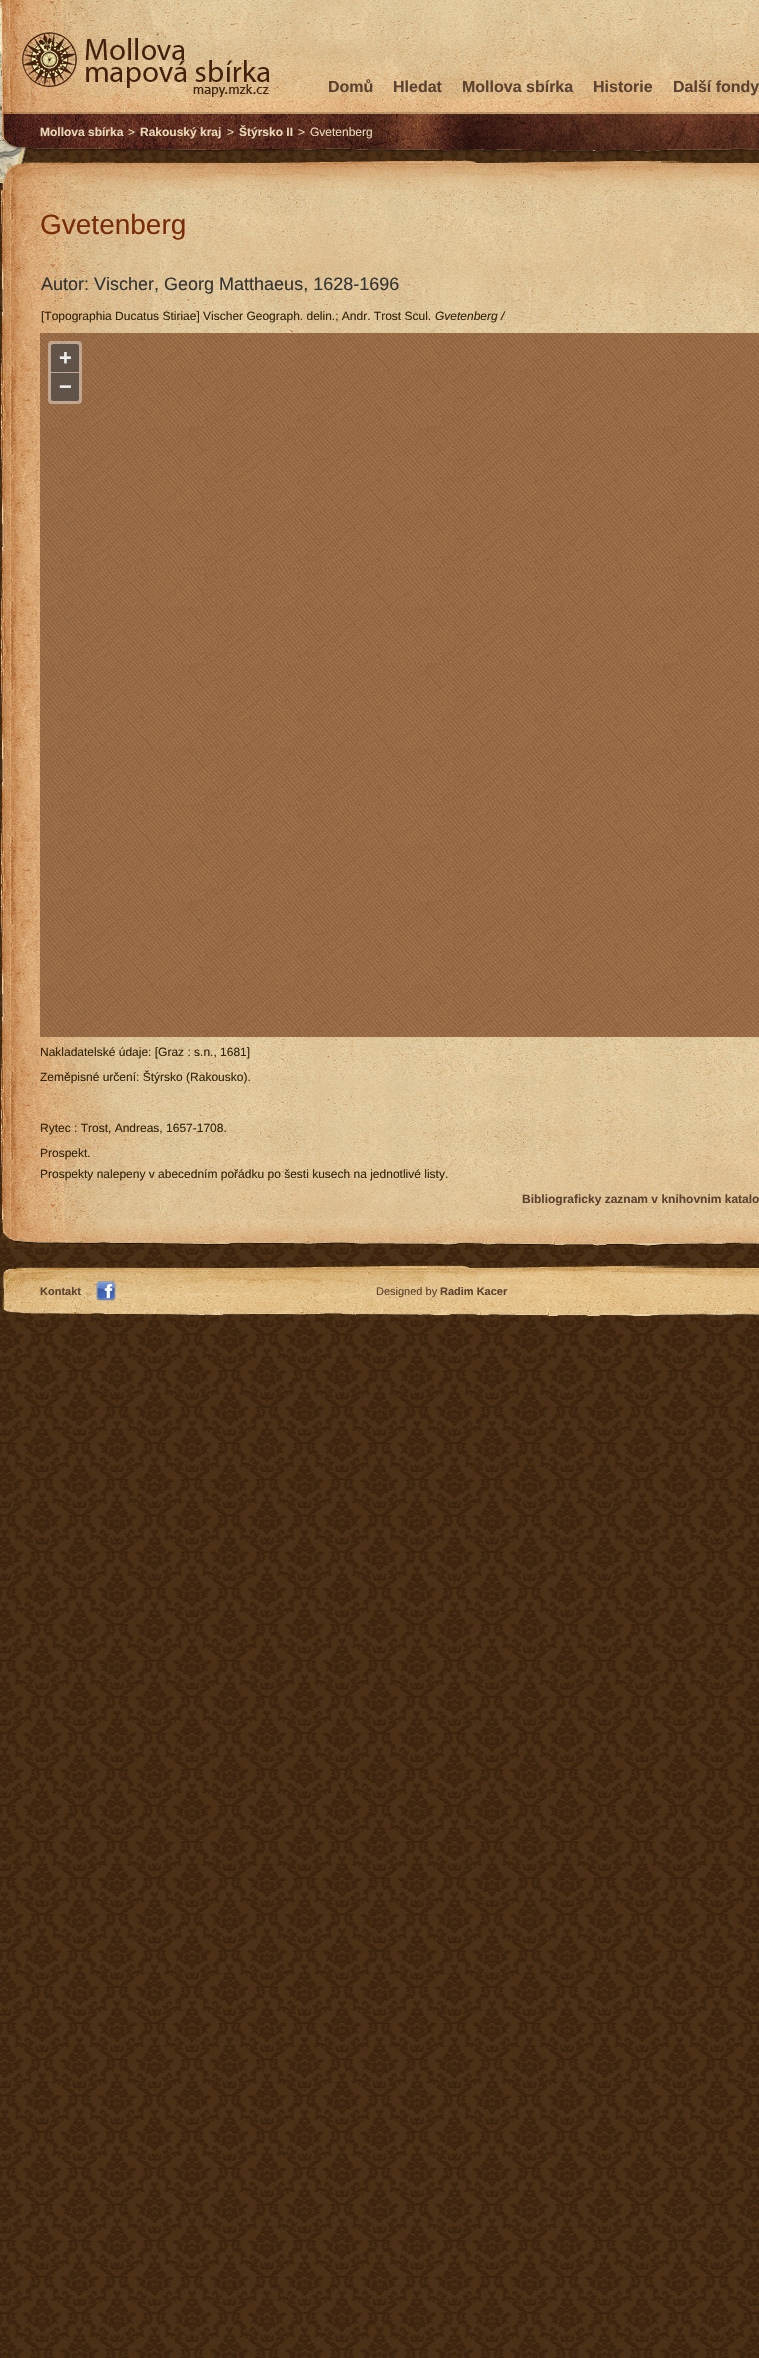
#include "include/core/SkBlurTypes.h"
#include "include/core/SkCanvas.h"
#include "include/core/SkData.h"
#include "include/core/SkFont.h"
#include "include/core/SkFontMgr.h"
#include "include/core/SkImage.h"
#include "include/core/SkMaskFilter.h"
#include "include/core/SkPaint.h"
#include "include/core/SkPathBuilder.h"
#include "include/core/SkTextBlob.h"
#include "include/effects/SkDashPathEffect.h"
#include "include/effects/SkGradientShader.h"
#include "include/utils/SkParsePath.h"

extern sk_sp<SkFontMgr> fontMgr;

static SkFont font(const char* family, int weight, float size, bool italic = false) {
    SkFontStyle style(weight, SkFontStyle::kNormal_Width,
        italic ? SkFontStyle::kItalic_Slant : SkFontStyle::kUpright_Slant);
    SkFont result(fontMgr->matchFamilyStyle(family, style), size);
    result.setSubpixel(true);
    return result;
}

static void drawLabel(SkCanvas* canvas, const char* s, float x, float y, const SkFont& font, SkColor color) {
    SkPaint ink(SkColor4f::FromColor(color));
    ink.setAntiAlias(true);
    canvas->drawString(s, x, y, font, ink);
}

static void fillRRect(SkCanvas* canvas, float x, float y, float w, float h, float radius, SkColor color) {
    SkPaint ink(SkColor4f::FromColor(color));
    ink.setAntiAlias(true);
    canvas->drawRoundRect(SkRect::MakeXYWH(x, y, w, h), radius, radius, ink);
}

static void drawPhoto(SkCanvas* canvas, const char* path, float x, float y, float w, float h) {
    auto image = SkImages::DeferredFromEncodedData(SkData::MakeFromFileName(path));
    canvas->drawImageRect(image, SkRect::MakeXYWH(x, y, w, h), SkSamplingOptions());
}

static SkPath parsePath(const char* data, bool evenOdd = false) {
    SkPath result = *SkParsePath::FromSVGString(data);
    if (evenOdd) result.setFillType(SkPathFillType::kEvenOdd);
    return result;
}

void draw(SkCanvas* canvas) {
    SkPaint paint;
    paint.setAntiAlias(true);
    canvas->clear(0xFFFFFFFF);
    drawPhoto(canvas, "assets/img1.png", 0, 0, 759, 2358);
    drawPhoto(canvas, "assets/img2.png", 0, 0, 40, 186);
    drawPhoto(canvas, "assets/img3.png", 0, 0, 759, 154);
    drawPhoto(canvas, "assets/img4.png", 22, 32, 248, 65);
    SkFont font1 = font("Liberation Sans", 700, 16);
    drawLabel(canvas, "Domů", 328, 92, font1, 0xFF5B412F);
    drawLabel(canvas, "Hledat", 393, 92, font1, 0xFF5B412F);
    drawLabel(canvas, "Mollova sbírka", 462, 92, font1, 0xFF5B412F);
    drawLabel(canvas, "Historie", 593, 92, font1, 0xFF5B412F);
    drawLabel(canvas, "Další fondy", 673, 92, font1, 0xFF5B412F);
    SkFont font2 = font("Liberation Sans", 700, 12);
    drawLabel(canvas, "Mollova sbírka", 40, 136, font2, 0xFFEAD9B7);
    SkFont font3 = font("Liberation Sans", 400, 12);
    drawLabel(canvas, ">", 128, 136, font3, 0xFFEAD9B7);
    drawLabel(canvas, "Rakouský kraj", 140, 136, font2, 0xFFEAD9B7);
    drawLabel(canvas, ">", 227, 136, font3, 0xFFEAD9B7);
    drawLabel(canvas, "Štýrsko II", 239, 136, font2, 0xFFEAD9B7);
    drawLabel(canvas, ">", 298, 136, font3, 0xFFEAD9B7);
    drawLabel(canvas, "Gvetenberg", 310, 136, font3, 0xFFEAD9B7);
    drawPhoto(canvas, "assets/img5.png", 2, 160, 757, 30);
    drawPhoto(canvas, "assets/img6.png", 1, 190, 758, 1029);
    SkFont font4 = font("Liberation Sans", 400, 28);
    drawLabel(canvas, "Gvetenberg", 40, 234, font4, 0xFF7A2B0A);
    SkFont font5 = font("Liberation Sans", 400, 18);
    drawLabel(canvas, "Autor: Vischer, Georg Matthaeus, 1628-1696", 41, 290, font5, 0xFF333333);
    drawLabel(canvas, "[Topographia Ducatus Stiriae] Vischer Geograph. delin.; Andr. Trost Scul.", 41, 320, font3, 0xFF32240B);
    SkFont font6 = font("Liberation Sans", 400, 12, true);
    drawLabel(canvas, "Gvetenberg /", 435, 320, font6, 0xFF32240B);
    drawPhoto(canvas, "assets/img7.png", 40, 333, 719, 704);
    fillRRect(canvas, 48, 341, 34, 63, 4, 0x66FFFFFF);
    paint.setColor(0x80000000);
    canvas->drawPath(parsePath("M53 344H77C78 344 79 345 79 346V372H51V346C51 345 52 344 53 344Z"), paint);
    SkFont font7 = font("Liberation Sans", 700, 22);
    drawLabel(canvas, "+", 59, 365, font7, 0xFFEEEEEE);
    canvas->drawPath(parsePath("M51 373H79V399C79 400 78 401 77 401H53C52 401 51 400 51 399Z"), paint);
    drawLabel(canvas, "−", 59, 394, font7, 0xFFEEEEEE);
    drawLabel(canvas, "Nakladatelské údaje: [Graz : s.n., 1681]", 40, 1056, font3, 0xFF32240B);
    drawLabel(canvas, "Zeměpisné určení: Štýrsko (Rakousko).", 40, 1081, font3, 0xFF32240B);
    drawLabel(canvas, "Rytec : Trost, Andreas, 1657-1708.", 40, 1132, font3, 0xFF32240B);
    drawLabel(canvas, "Prospekt.", 40, 1157, font3, 0xFF32240B);
    drawLabel(canvas, "Prospekty nalepeny v abecedním pořádku po šesti kusech na jednotlivé listy.", 40, 1178, font3, 0xFF32240B);
    drawLabel(canvas, "Bibliograficky zaznam v knihovnim katalo", 522, 1203, font2, 0xFF5B412F);
    drawPhoto(canvas, "assets/img8.png", 2, 1219, 757, 29);
    drawPhoto(canvas, "assets/img9.png", 2, 1265, 757, 51);
    SkFont font8 = font("Liberation Sans", 700, 11);
    drawLabel(canvas, "Kontakt", 40, 1295, font8, 0xFF5B412F);
    drawPhoto(canvas, "assets/img10.png", 96, 1281, 20, 20);
    SkFont font9 = font("Liberation Sans", 400, 11);
    drawLabel(canvas, "Designed by", 376, 1295, font9, 0xFF5B412F);
    drawLabel(canvas, "Radim Kacer", 440, 1295, font8, 0xFF5B412F);
}
